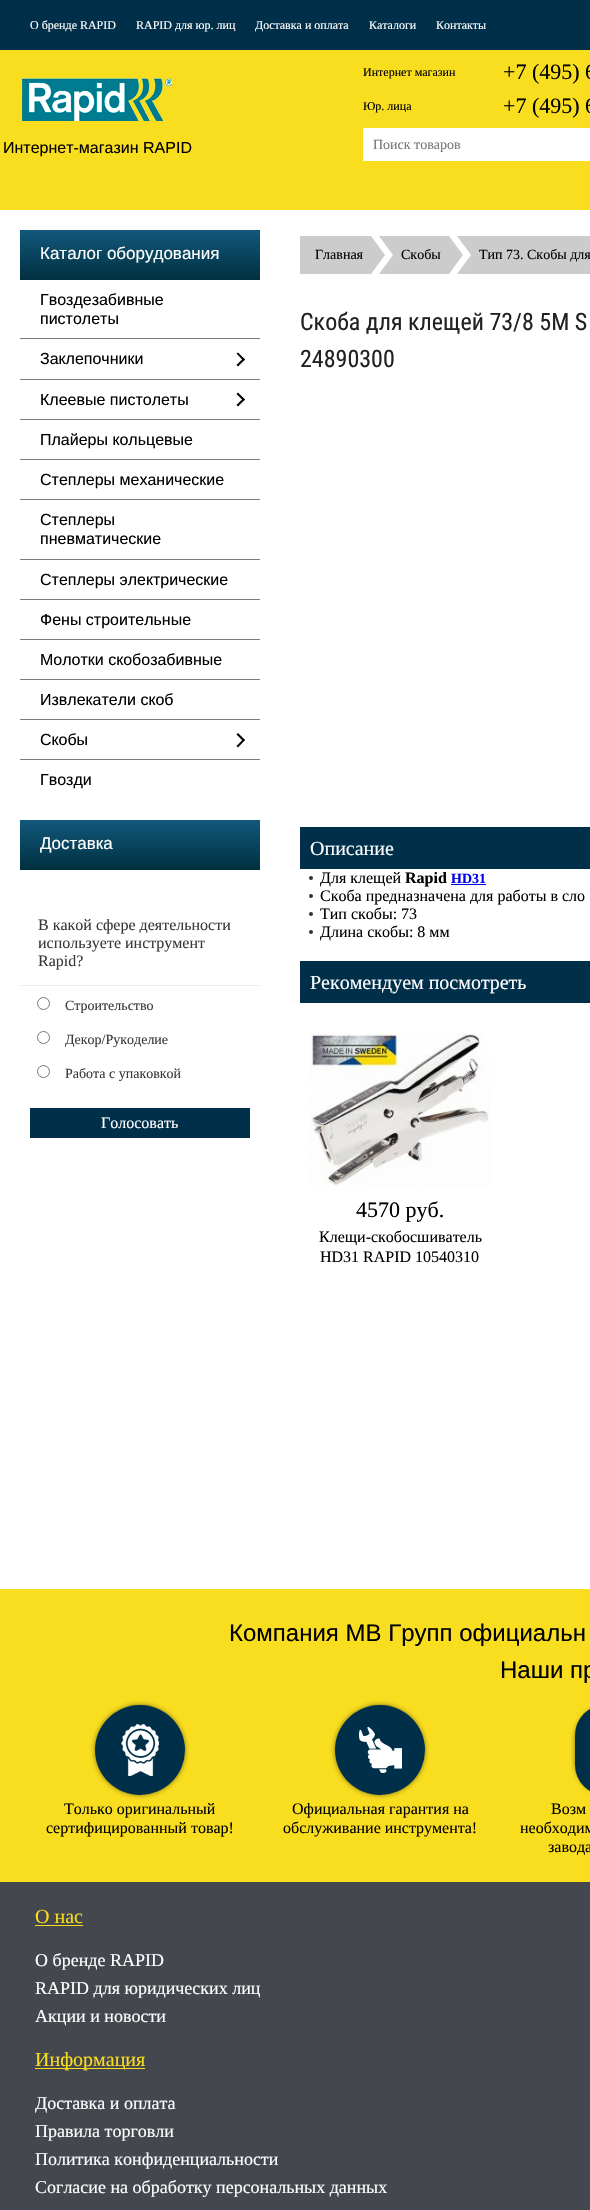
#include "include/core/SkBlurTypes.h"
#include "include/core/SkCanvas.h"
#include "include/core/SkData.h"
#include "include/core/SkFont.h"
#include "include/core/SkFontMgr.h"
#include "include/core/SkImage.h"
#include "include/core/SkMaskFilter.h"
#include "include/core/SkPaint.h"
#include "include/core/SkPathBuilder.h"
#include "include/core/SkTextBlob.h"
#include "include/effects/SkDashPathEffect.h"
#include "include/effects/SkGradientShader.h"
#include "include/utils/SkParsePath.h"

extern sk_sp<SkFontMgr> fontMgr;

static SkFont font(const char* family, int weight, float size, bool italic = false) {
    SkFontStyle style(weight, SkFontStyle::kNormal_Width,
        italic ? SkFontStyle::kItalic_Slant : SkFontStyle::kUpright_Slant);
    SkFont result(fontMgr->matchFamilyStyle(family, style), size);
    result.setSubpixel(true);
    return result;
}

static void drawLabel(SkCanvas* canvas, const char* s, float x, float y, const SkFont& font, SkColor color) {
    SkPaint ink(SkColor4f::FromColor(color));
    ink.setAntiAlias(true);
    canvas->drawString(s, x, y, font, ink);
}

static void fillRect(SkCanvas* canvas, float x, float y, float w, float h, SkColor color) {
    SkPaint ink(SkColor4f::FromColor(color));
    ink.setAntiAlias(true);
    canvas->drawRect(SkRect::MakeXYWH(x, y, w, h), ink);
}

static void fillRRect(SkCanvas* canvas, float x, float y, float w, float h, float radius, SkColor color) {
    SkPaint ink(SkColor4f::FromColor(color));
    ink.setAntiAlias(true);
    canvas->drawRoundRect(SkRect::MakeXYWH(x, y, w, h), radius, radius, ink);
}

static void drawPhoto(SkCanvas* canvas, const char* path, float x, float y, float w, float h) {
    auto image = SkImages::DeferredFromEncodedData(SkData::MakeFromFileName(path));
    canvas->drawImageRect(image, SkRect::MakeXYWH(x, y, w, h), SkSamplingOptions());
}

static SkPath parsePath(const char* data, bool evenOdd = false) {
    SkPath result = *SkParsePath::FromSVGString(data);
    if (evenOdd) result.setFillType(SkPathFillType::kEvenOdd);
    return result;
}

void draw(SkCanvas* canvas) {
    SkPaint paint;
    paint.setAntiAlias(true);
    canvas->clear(0xFFFFFFFF);
    fillRect(canvas, 0, 0, 590, 50, 0xFF002F4A);
    SkFont font1 = font("Liberation Serif", 400, 12);
    drawLabel(canvas, "О бренде RAPID", 30, 29, font1, 0xFFFFFFFF);
    drawLabel(canvas, "RAPID для юр. лиц", 136, 29, font1, 0xFFFFFFFF);
    drawLabel(canvas, "Доставка и оплата", 255, 29, font1, 0xFFFFFFFF);
    drawLabel(canvas, "Каталоги", 369, 29, font1, 0xFFFFFFFF);
    drawLabel(canvas, "Контакты", 436, 29, font1, 0xFFFFFFFF);
    fillRect(canvas, 0, 50, 590, 160, 0xFFF9DD1F);
    drawPhoto(canvas, "assets/img1.png", 22, 78, 150, 43);
    SkFont font2 = font("Liberation Sans", 400, 16);
    drawLabel(canvas, "Интернет-магазин RAPID", 3, 153, font2, 0xFF000000);
    drawLabel(canvas, "Интернет магазин", 363, 76, font1, 0xFF000000);
    SkFont font3 = font("Liberation Serif", 400, 22);
    drawLabel(canvas, "+7 (495) 6", 503, 79, font3, 0xFF000000);
    drawLabel(canvas, "Юр. лица", 363, 110, font1, 0xFF000000);
    drawLabel(canvas, "+7 (495) 6", 503, 113, font3, 0xFF000000);
    fillRect(canvas, 363, 128, 227, 33, 0xFFFFFFFF);
    SkFont font4 = font("Liberation Serif", 400, 14);
    drawLabel(canvas, "Поиск товаров", 373, 149, font4, 0xFF757575);
    {
        const SkColor colors[] = {0xFF12587C, 0xFF00303F};
        const float stops[] = {0, 1};
        const SkPoint ends[] = {{140, 230}, {140, 280}};
        paint.setShader(SkGradientShader::MakeLinear(ends, colors, stops, 2, SkTileMode::kClamp));
        paint.setAlpha(255);
    }
    canvas->drawRect(SkRect::MakeXYWH(20, 230, 240, 50), paint);
    SkFont font5 = font("Liberation Sans", 400, 17);
    drawLabel(canvas, "Каталог оборудования", 40, 259, font5, 0xFFFFFFFF);
    fillRect(canvas, 20, 338, 240, 1, 0xFF7B7B7B);
    drawLabel(canvas, "Гвоздезабивные", 40, 305, font2, 0xFF000000);
    drawLabel(canvas, "пистолеты", 40, 324, font2, 0xFF000000);
    fillRect(canvas, 20, 379, 240, 1, 0xFF7B7B7B);
    drawLabel(canvas, "Заклепочники", 40, 364, font2, 0xFF000000);
    paint.setShader(nullptr);
    paint.setColor(0xFF000000);
    canvas->drawPath(parsePath("M238 352.5L245 359.5L243.5 361L236.5 353.5Z"), paint);
    canvas->drawPath(parsePath("M243.5 358L245 359.5L238 366.5L236.5 365Z"), paint);
    fillRect(canvas, 20, 419, 240, 1, 0xFF7B7B7B);
    drawLabel(canvas, "Клеевые пистолеты", 40, 405, font2, 0xFF000000);
    canvas->drawPath(parsePath("M238 392.5L245 399.5L243.5 401L236.5 394Z"), paint);
    canvas->drawPath(parsePath("M243.5 398L245 399.5L238 406.5L236.5 405Z"), paint);
    fillRect(canvas, 20, 459, 240, 1, 0xFF7B7B7B);
    drawLabel(canvas, "Плайеры кольцевые", 40, 445, font2, 0xFF000000);
    fillRect(canvas, 20, 499, 240, 1, 0xFF7B7B7B);
    drawLabel(canvas, "Степлеры механические", 40, 485, font2, 0xFF000000);
    fillRect(canvas, 20, 559, 240, 1, 0xFF7B7B7B);
    drawLabel(canvas, "Степлеры", 40, 525, font2, 0xFF000000);
    drawLabel(canvas, "пневматические", 40, 544, font2, 0xFF000000);
    fillRect(canvas, 20, 599, 240, 1, 0xFF7B7B7B);
    drawLabel(canvas, "Степлеры электрические", 40, 585, font2, 0xFF000000);
    fillRect(canvas, 20, 639, 240, 1, 0xFF7B7B7B);
    drawLabel(canvas, "Фены строительные", 40, 625, font2, 0xFF000000);
    fillRect(canvas, 20, 679, 240, 1, 0xFF7B7B7B);
    drawLabel(canvas, "Молотки скобозабивные", 40, 665, font2, 0xFF000000);
    fillRect(canvas, 20, 719, 240, 1, 0xFF7B7B7B);
    drawLabel(canvas, "Извлекатели скоб", 40, 705, font2, 0xFF000000);
    fillRect(canvas, 20, 759, 240, 1, 0xFF7B7B7B);
    drawLabel(canvas, "Скобы", 40, 745, font2, 0xFF000000);
    canvas->drawPath(parsePath("M238 733L245 740L243.5 741.5L236.5 734.5Z"), paint);
    canvas->drawPath(parsePath("M243.5 739L245 740L238 747.5L236.5 746Z"), paint);
    drawLabel(canvas, "Гвозди", 40, 785, font2, 0xFF000000);
    {
        const SkColor colors[] = {0xFF12587C, 0xFF00303F};
        const float stops[] = {0, 1};
        const SkPoint ends[] = {{140, 820}, {140, 870}};
        paint.setShader(SkGradientShader::MakeLinear(ends, colors, stops, 2, SkTileMode::kClamp));
        paint.setAlpha(255);
    }
    canvas->drawRect(SkRect::MakeXYWH(20, 820, 240, 50), paint);
    drawLabel(canvas, "Доставка", 40, 849, font5, 0xFFFFFFFF);
    fillRect(canvas, 20, 985, 240, 1, 0xFFE9ECEC);
    SkFont font6 = font("Liberation Serif", 400, 16);
    drawLabel(canvas, "В какой сфере деятельности", 38, 930, font6, 0xFF383838);
    drawLabel(canvas, "используете инструмент", 38, 948, font6, 0xFF383838);
    drawLabel(canvas, "Rapid?", 38, 966, font6, 0xFF383838);
    paint.setStroke(true);
    paint.setStrokeWidth(1);
    paint.setShader(nullptr);
    paint.setColor(0xFF767676);
    canvas->drawCircle(43.5f, 1003.5f, 6, paint);
    drawLabel(canvas, "Строительство", 65, 1010, font4, 0xFF383838);
    canvas->drawCircle(43.5f, 1037.5f, 6, paint);
    drawLabel(canvas, "Декор/Рукоделие", 65, 1044, font4, 0xFF383838);
    canvas->drawCircle(43.5f, 1071.5f, 6, paint);
    drawLabel(canvas, "Работа с упаковкой", 65, 1078, font4, 0xFF383838);
    fillRect(canvas, 30, 1108, 220, 30, 0xFF002F4A);
    drawLabel(canvas, "Голосовать", 101, 1128, font6, 0xFFFFFFFF);
    fillRect(canvas, 300, 236, 71, 38, 0xFFCCCCCC);
    drawLabel(canvas, "Главная", 315, 259, font4, 0xFF000000);
    paint.setStroke(false);
    paint.setColor(0xFFCCCCCC);
    canvas->drawPath(parsePath("M371 274V236L385 255Z"), paint);
    fillRect(canvas, 393, 236, 56, 38, 0xFFCCCCCC);
    canvas->drawPath(parsePath("M379 236H393V255ZM393 274H379L393 255Z"), paint);
    drawLabel(canvas, "Скобы", 401, 259, font4, 0xFF000000);
    canvas->drawPath(parsePath("M449 274V236L463 255Z"), paint);
    fillRect(canvas, 471, 236, 119, 38, 0xFFCCCCCC);
    canvas->drawPath(parsePath("M457 236H471V255ZM471 274H457L471 255Z"), paint);
    drawLabel(canvas, "Тип 73. Скобы для", 479, 259, font4, 0xFF000000);
    SkFont font7 = font("Roboto Condensed", 400, 24);
    drawLabel(canvas, "Скоба для клещей 73/8 5M S", 300, 330, font7, 0xFF212121);
    drawLabel(canvas, "24890300", 300, 367, font7, 0xFF212121);
    fillRect(canvas, 300, 827, 290, 42, 0xFF002F4A);
    SkFont font8 = font("Liberation Serif", 400, 20);
    drawLabel(canvas, "Описание", 310, 855, font8, 0xFFFFFFFF);
    paint.setColor(0xFF333333);
    canvas->drawCircle(311, 878, 2, paint);
    drawLabel(canvas, "Для клещей", 320, 883, font6, 0xFF000000);
    SkFont font9 = font("Liberation Serif", 700, 16);
    drawLabel(canvas, "Rapid", 405, 883, font9, 0xFF000000);
    SkFont font10 = font("Liberation Serif", 700, 14);
    drawLabel(canvas, "HD31", 451, 883, font10, 0xFF0000EE);
    fillRect(canvas, 451, 884, 35, 1, 0xFF0000EE);
    canvas->drawCircle(311, 896, 2, paint);
    drawLabel(canvas, "Скоба предназначена для работы в сло", 320, 901, font6, 0xFF000000);
    canvas->drawCircle(311, 914, 2, paint);
    drawLabel(canvas, "Тип скобы: 73", 320, 919, font6, 0xFF000000);
    canvas->drawCircle(311, 932, 2, paint);
    drawLabel(canvas, "Длина скобы: 8 мм", 320, 937, font6, 0xFF000000);
    fillRect(canvas, 300, 961, 290, 42, 0xFF002F4A);
    drawLabel(canvas, "Рекомендуем посмотреть", 310, 989, font8, 0xFFFFFFFF);
    drawPhoto(canvas, "assets/img2.png", 310, 1033, 180, 153);
    drawLabel(canvas, "4570 руб.", 356, 1217, font3, 0xFF000000);
    drawLabel(canvas, "Клещи-скобосшиватель", 319, 1242, font6, 0xFF000000);
    drawLabel(canvas, "HD31 RAPID 10540310", 320, 1262, font6, 0xFF000000);
    fillRect(canvas, 0, 1589, 590, 293, 0xFFF9DD1F);
    SkFont font11 = font("Liberation Sans", 400, 24);
    drawLabel(canvas, "Компания МВ Групп официальн", 229, 1641, font11, 0xFF000000);
    drawLabel(canvas, "Наши пр", 500, 1678, font11, 0xFF000000);
    paint.setColor(0x80000000);
    paint.setMaskFilter(SkMaskFilter::MakeBlur(kNormal_SkBlurStyle, 2.5f));
    canvas->drawRoundRect(SkRect::MakeXYWH(95, 1705, 90, 90), 45, 45, paint);
    paint.setMaskFilter(nullptr);
    paint.setColor(0xFF002F4A);
    canvas->drawCircle(140, 1750, 45, paint);
    drawPhoto(canvas, "assets/img3.png", 121, 1724, 38, 52);
    drawLabel(canvas, "Только оригинальный", 64, 1814, font6, 0xFF000000);
    drawLabel(canvas, "сертифицированный товар!", 46, 1833, font6, 0xFF000000);
    paint.setColor(0x80000000);
    paint.setMaskFilter(SkMaskFilter::MakeBlur(kNormal_SkBlurStyle, 2.5f));
    canvas->drawRoundRect(SkRect::MakeXYWH(335, 1705, 90, 90), 45, 45, paint);
    paint.setMaskFilter(nullptr);
    paint.setColor(0xFF002F4A);
    canvas->drawCircle(380, 1750, 45, paint);
    drawPhoto(canvas, "assets/img4.png", 359, 1727, 43, 46);
    drawLabel(canvas, "Официальная гарантия на", 292, 1814, font6, 0xFF000000);
    drawLabel(canvas, "обслуживание инструмента!", 283, 1833, font6, 0xFF000000);
    paint.setColor(0x80000000);
    paint.setMaskFilter(SkMaskFilter::MakeBlur(kNormal_SkBlurStyle, 2.5f));
    canvas->drawRoundRect(SkRect::MakeXYWH(575, 1705, 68, 90), 45, 45, paint);
    paint.setMaskFilter(nullptr);
    fillRRect(canvas, 575, 1705, 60, 90, 45, 0xFF002F4A);
    drawLabel(canvas, "Возм", 551, 1814, font6, 0xFF000000);
    drawLabel(canvas, "необходим", 520, 1833, font6, 0xFF000000);
    drawLabel(canvas, "завода", 548, 1852, font6, 0xFF000000);
    fillRect(canvas, 0, 1882, 590, 328, 0xFF44474E);
    fillRect(canvas, 35, 1925, 48, 1, 0xFFF9DD1F);
    drawLabel(canvas, "О нас", 35, 1923, font8, 0xFFF9DD1F);
    SkFont font12 = font("Liberation Serif", 400, 18);
    drawLabel(canvas, "О бренде RAPID", 35, 1966, font12, 0xFFFFFFFF);
    drawLabel(canvas, "RAPID для юридических лиц", 35, 1994, font12, 0xFFFFFFFF);
    drawLabel(canvas, "Акции и новости", 35, 2022, font12, 0xFFFFFFFF);
    fillRect(canvas, 35, 2068, 110, 1, 0xFFF9DD1F);
    drawLabel(canvas, "Информация", 35, 2066, font8, 0xFFF9DD1F);
    drawLabel(canvas, "Доставка и оплата", 35, 2109, font12, 0xFFFFFFFF);
    drawLabel(canvas, "Правила торговли", 35, 2137, font12, 0xFFFFFFFF);
    drawLabel(canvas, "Политика конфиденциальности", 35, 2165, font12, 0xFFFFFFFF);
    drawLabel(canvas, "Согласие на обработку персональных данных", 35, 2193, font12, 0xFFFFFFFF);
}
